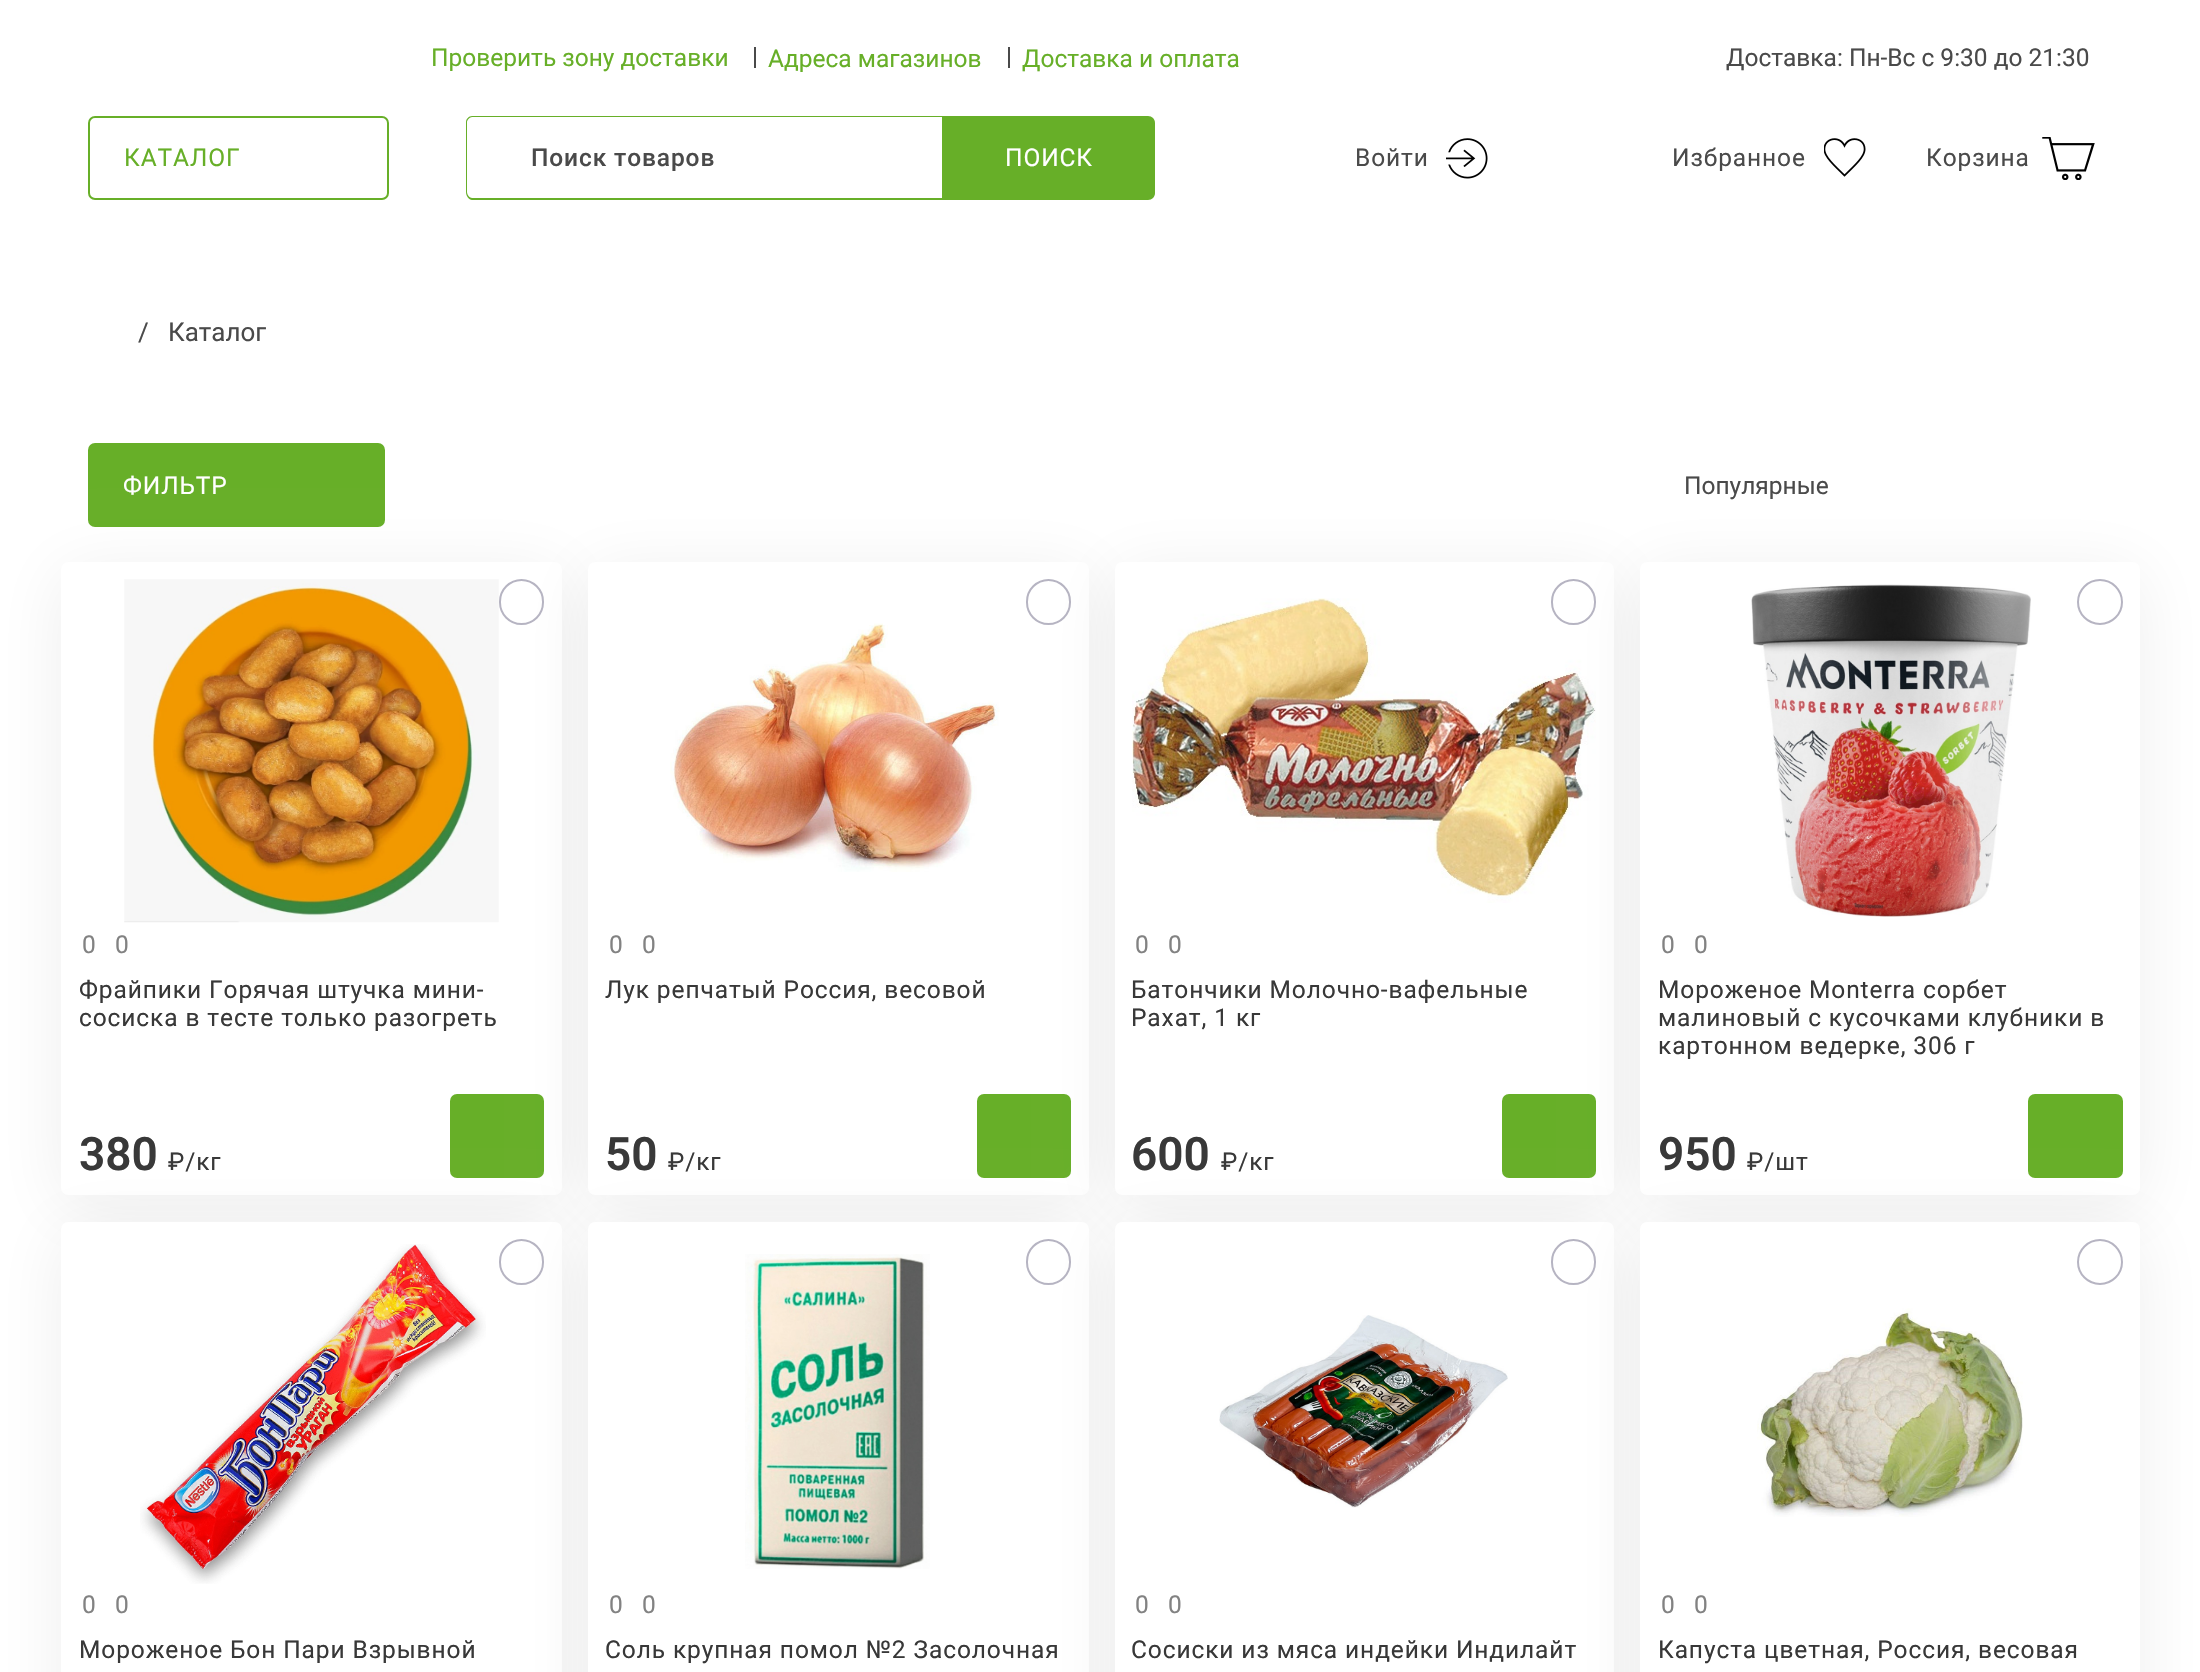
#include "include/core/SkBlurTypes.h"
#include "include/core/SkCanvas.h"
#include "include/core/SkData.h"
#include "include/core/SkFont.h"
#include "include/core/SkFontMgr.h"
#include "include/core/SkImage.h"
#include "include/core/SkMaskFilter.h"
#include "include/core/SkPaint.h"
#include "include/core/SkPathBuilder.h"
#include "include/core/SkTextBlob.h"
#include "include/effects/SkDashPathEffect.h"
#include "include/effects/SkGradientShader.h"
#include "include/utils/SkParsePath.h"

extern sk_sp<SkFontMgr> fontMgr;

static SkFont font(const char* family, int weight, float size, bool italic = false) {
    SkFontStyle style(weight, SkFontStyle::kNormal_Width,
        italic ? SkFontStyle::kItalic_Slant : SkFontStyle::kUpright_Slant);
    SkFont result(fontMgr->matchFamilyStyle(family, style), size);
    result.setSubpixel(true);
    return result;
}

static void drawLabel(SkCanvas* canvas, const char* s, float x, float y, const SkFont& font, SkColor color) {
    SkPaint ink(SkColor4f::FromColor(color));
    ink.setAntiAlias(true);
    canvas->drawString(s, x, y, font, ink);
}

static void drawTracked(SkCanvas* canvas, const char* s, float x, float y, const SkFont& font, const SkPaint& ink, float letter, float word) {
    std::vector<SkGlyphID> glyphs(font.countText(s, strlen(s), SkTextEncoding::kUTF8));
    std::vector<float> xs(glyphs.size());
    font.textToGlyphs(s, strlen(s), SkTextEncoding::kUTF8, glyphs);
    font.getXPos(glyphs, xs, x);
    float extra = 0;
    for (size_t i = 0; i < glyphs.size(); i++) {
        xs[i] += extra;
        extra += letter + word * (glyphs[i] == font.unicharToGlyph(' '));
    }
    canvas->drawTextBlob(SkTextBlob::MakeFromPosHGlyphs(glyphs, xs, y, font), 0, 0, ink);
}

static void fillRect(SkCanvas* canvas, float x, float y, float w, float h, SkColor color) {
    SkPaint ink(SkColor4f::FromColor(color));
    ink.setAntiAlias(true);
    canvas->drawRect(SkRect::MakeXYWH(x, y, w, h), ink);
}

static void fillRRect(SkCanvas* canvas, float x, float y, float w, float h, float radius, SkColor color) {
    SkPaint ink(SkColor4f::FromColor(color));
    ink.setAntiAlias(true);
    canvas->drawRoundRect(SkRect::MakeXYWH(x, y, w, h), radius, radius, ink);
}

static void drawPhoto(SkCanvas* canvas, const char* path, float x, float y, float w, float h) {
    auto image = SkImages::DeferredFromEncodedData(SkData::MakeFromFileName(path));
    canvas->drawImageRect(image, SkRect::MakeXYWH(x, y, w, h), SkSamplingOptions());
}

static SkPath parsePath(const char* data, bool evenOdd = false) {
    SkPath result = *SkParsePath::FromSVGString(data);
    if (evenOdd) result.setFillType(SkPathFillType::kEvenOdd);
    return result;
}

void draw(SkCanvas* canvas) {
    SkPaint paint;
    paint.setAntiAlias(true);
    canvas->clear(0xFFFFFFFF);
    SkFont font1 = font("Roboto", 400, 24.5f);
    drawLabel(canvas, "Проверить зону доставки", 431, 66, font1, 0xFF67AF28);
    fillRect(canvas, 754, 47, 2, 21, 0xFF4A4A4A);
    drawLabel(canvas, "Адреса магазинов", 768, 67, font1, 0xFF67AF28);
    fillRect(canvas, 1008, 47, 2, 21, 0xFF4A4A4A);
    drawLabel(canvas, "Доставка и оплата", 1022, 67, font1, 0xFF67AF28);
    drawLabel(canvas, "Доставка: Пн-Вс с 9:30 до 21:30", 1726, 66, font1, 0xFF4A4A4A);
    paint.setStroke(true);
    paint.setStrokeWidth(2);
    paint.setColor(0xFF67AF28);
    canvas->drawRoundRect(SkRect::MakeXYWH(89, 117, 299, 82), 6, 6, paint);
    paint.setStroke(false);
    drawTracked(canvas, "КАТАЛОГ", 124, 166, font1, paint, 0.9f, 0);
    canvas->drawPath(parsePath("M472 116H942V200H472C469 200 466 196 466 192V122C466 119 469 116 472 116ZM472 117H942V198H472C470 198 467 195 467 192V122C467 120 470 117 472 117Z", true), paint);
    SkFont font2 = font("Roboto", 500, 24.5f);
    paint.setColor(0xFF4A4A4A);
    drawTracked(canvas, "Поиск товаров", 531, 166, font2, paint, 0.9f, 0);
    paint.setColor(0xFF67AF28);
    canvas->drawPath(parsePath("M942 116H1148C1152 116 1155 119 1155 123V193C1155 197 1152 200 1148 200H942Z"), paint);
    paint.setColor(0xFFFFFFFF);
    drawTracked(canvas, "ПОИСК", 1005, 166, font1, paint, 0.9f, 0);
    paint.setColor(0xFF4A4A4A);
    drawTracked(canvas, "Войти", 1355, 166, font1, paint, 0.9f, 0);
    drawPhoto(canvas, "assets/img1.png", 1446, 138, 42, 41);
    drawTracked(canvas, "Избранное", 1672, 166, font1, paint, 0.9f, 0);
    drawPhoto(canvas, "assets/img2.png", 1824, 138, 42, 39);
    drawTracked(canvas, "Корзина", 1926, 166, font1, paint, 0.9f, 0);
    drawPhoto(canvas, "assets/img3.png", 2042, 137, 53, 43);
    SkFont font3 = font("Roboto", 400, 26);
    drawLabel(canvas, "/", 138, 341, font3, 0xFF4A4A4A);
    drawLabel(canvas, "Каталог", 168, 341, font3, 0xFF4A4A4A);
    fillRRect(canvas, 88, 443, 297, 84, 7, 0xFF67AF28);
    paint.setColor(0xFFFFFFFF);
    drawTracked(canvas, "ФИЛЬТР", 123, 494, font1, paint, 0.9f, 0);
    drawLabel(canvas, "Популярные", 1684, 494, font1, 0xFF4A4A4A);
    paint.setColor(0x121D1617);
    paint.setMaskFilter(SkMaskFilter::MakeBlur(kNormal_SkBlurStyle, 35));
    canvas->drawRoundRect(SkRect::MakeXYWH(61, 572, 501, 634), 7, 7, paint);
    paint.setMaskFilter(nullptr);
    fillRRect(canvas, 61, 562, 501, 633, 7, 0xFFFFFFFF);
    drawPhoto(canvas, "assets/img4.png", 124, 579, 375, 344);
    fillRRect(canvas, 450, 1094, 94, 84, 7, 0xFF67AF28);
    paint.setMaskFilter(SkMaskFilter::MakeBlur(kNormal_SkBlurStyle, 35));
    canvas->drawRoundRect(SkRect::MakeXYWH(588, 572, 501, 634), 7, 7, paint);
    paint.setMaskFilter(nullptr);
    paint.setStroke(true);
    paint.setColor(0xFFB6B4C2);
    canvas->drawRoundRect(SkRect::MakeXYWH(500, 580, 43, 44), 21.5f, 21.5f, paint);
    drawLabel(canvas, "0", 82, 953, font1, 0xFF828282);
    drawLabel(canvas, "0", 115, 953, font1, 0xFF828282);
    paint.setStroke(false);
    paint.setColor(0xFF383838);
    drawTracked(canvas, "Фрайпики Горячая штучка мини-", 79, 998, font1, paint, 0.9f, 0);
    drawTracked(canvas, "сосиска в тесте только разогреть", 79, 1026, font1, paint, 0.9f, 0);
    SkFont font4 = font("Roboto", 600, 46);
    drawLabel(canvas, "380", 79, 1170, font4, 0xFF383838);
    drawTracked(canvas, "₽/кг", 168, 1170, font1, paint, 0.9f, 0);
    fillRRect(canvas, 588, 562, 501, 633, 7, 0xFFFFFFFF);
    fillRRect(canvas, 977, 1094, 94, 84, 7, 0xFF67AF28);
    paint.setColor(0x121D1617);
    paint.setMaskFilter(SkMaskFilter::MakeBlur(kNormal_SkBlurStyle, 35));
    canvas->drawRoundRect(SkRect::MakeXYWH(1115, 572, 499, 634), 7, 7, paint);
    paint.setMaskFilter(nullptr);
    paint.setStroke(true);
    paint.setColor(0xFFB6B4C2);
    canvas->drawRoundRect(SkRect::MakeXYWH(1027, 580, 43, 44), 21.5f, 21.5f, paint);
    drawPhoto(canvas, "assets/img5.png", 670, 623, 330, 249);
    drawLabel(canvas, "0", 609, 953, font1, 0xFF828282);
    drawLabel(canvas, "0", 642, 953, font1, 0xFF828282);
    paint.setStroke(false);
    paint.setColor(0xFF383838);
    drawTracked(canvas, "Лук репчатый Россия, весовой", 605, 998, font1, paint, 0.9f, 0);
    drawLabel(canvas, "50", 605, 1170, font4, 0xFF383838);
    drawTracked(canvas, "₽/кг", 668, 1170, font1, paint, 0.9f, 0);
    fillRRect(canvas, 1115, 562, 499, 633, 7, 0xFFFFFFFF);
    drawPhoto(canvas, "assets/img6.png", 1132, 598, 464, 305);
    fillRRect(canvas, 1502, 1094, 94, 84, 7, 0xFF67AF28);
    paint.setColor(0x121D1617);
    paint.setMaskFilter(SkMaskFilter::MakeBlur(kNormal_SkBlurStyle, 35));
    canvas->drawRoundRect(SkRect::MakeXYWH(1640, 572, 500, 634), 7, 7, paint);
    paint.setMaskFilter(nullptr);
    paint.setStroke(true);
    paint.setColor(0xFFB6B4C2);
    canvas->drawRoundRect(SkRect::MakeXYWH(1552, 580, 43, 44), 21.5f, 21.5f, paint);
    drawLabel(canvas, "0", 1135, 953, font1, 0xFF828282);
    drawLabel(canvas, "0", 1168, 953, font1, 0xFF828282);
    paint.setStroke(false);
    paint.setColor(0xFF383838);
    drawTracked(canvas, "Батончики Молочно-вафельные", 1131, 998, font1, paint, 0.9f, 0);
    drawTracked(canvas, "Рахат, 1 кг", 1131, 1026, font1, paint, 0.9f, 0);
    drawLabel(canvas, "600", 1131, 1170, font4, 0xFF383838);
    drawTracked(canvas, "₽/кг", 1221, 1170, font1, paint, 0.9f, 0);
    fillRRect(canvas, 1640, 562, 500, 633, 7, 0xFFFFFFFF);
    drawPhoto(canvas, "assets/img7.png", 1751, 584, 280, 333);
    paint.setStroke(true);
    paint.setColor(0xFFB6B4C2);
    canvas->drawCircle(2100, 602, 22, paint);
    drawLabel(canvas, "0", 1661, 953, font1, 0xFF828282);
    drawLabel(canvas, "0", 1694, 953, font1, 0xFF828282);
    paint.setStroke(false);
    paint.setColor(0xFF383838);
    drawTracked(canvas, "Мороженое Monterra сорбет", 1658, 998, font1, paint, 0.9f, 0);
    drawTracked(canvas, "малиновый с кусочками клубники в", 1658, 1026, font1, paint, 0.9f, 0);
    drawTracked(canvas, "картонном ведерке, 306 г", 1658, 1054, font1, paint, 0.9f, 0);
    drawLabel(canvas, "950", 1658, 1170, font4, 0xFF383838);
    drawTracked(canvas, "₽/шт", 1747, 1170, font1, paint, 0.9f, 0);
    fillRRect(canvas, 2028, 1094, 95, 84, 7, 0xFF67AF28);
    paint.setColor(0x121D1617);
    paint.setMaskFilter(SkMaskFilter::MakeBlur(kNormal_SkBlurStyle, 35));
    canvas->drawRoundRect(SkRect::MakeXYWH(61, 1232, 501, 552), 7, 7, paint);
    paint.setMaskFilter(nullptr);
    fillRRect(canvas, 61, 1222, 501, 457, 7, 0xFFFFFFFF);
    drawPhoto(canvas, "assets/img8.png", 140, 1244, 346, 340);
    paint.setMaskFilter(SkMaskFilter::MakeBlur(kNormal_SkBlurStyle, 35));
    canvas->drawRoundRect(SkRect::MakeXYWH(588, 1232, 501, 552), 7, 7, paint);
    paint.setMaskFilter(nullptr);
    paint.setStroke(true);
    paint.setColor(0xFFB6B4C2);
    canvas->drawRoundRect(SkRect::MakeXYWH(500, 1240, 43, 44), 21.5f, 21.5f, paint);
    drawLabel(canvas, "0", 82, 1613, font1, 0xFF828282);
    drawLabel(canvas, "0", 115, 1613, font1, 0xFF828282);
    paint.setStroke(false);
    paint.setColor(0xFF383838);
    drawTracked(canvas, "Мороженое Бон Пари Взрывной", 79, 1658, font1, paint, 0.9f, 0);
    fillRRect(canvas, 588, 1222, 501, 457, 7, 0xFFFFFFFF);
    drawPhoto(canvas, "assets/img9.png", 745, 1254, 185, 315);
    paint.setColor(0x121D1617);
    paint.setMaskFilter(SkMaskFilter::MakeBlur(kNormal_SkBlurStyle, 35));
    canvas->drawRoundRect(SkRect::MakeXYWH(1115, 1232, 499, 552), 7, 7, paint);
    paint.setMaskFilter(nullptr);
    paint.setStroke(true);
    paint.setColor(0xFFB6B4C2);
    canvas->drawRoundRect(SkRect::MakeXYWH(1027, 1240, 43, 44), 21.5f, 21.5f, paint);
    drawLabel(canvas, "0", 609, 1613, font1, 0xFF828282);
    drawLabel(canvas, "0", 642, 1613, font1, 0xFF828282);
    paint.setStroke(false);
    paint.setColor(0xFF383838);
    drawTracked(canvas, "Соль крупная помол №2 Засолочная", 605, 1658, font1, paint, 0.9f, 0);
    fillRRect(canvas, 1115, 1222, 499, 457, 7, 0xFFFFFFFF);
    paint.setColor(0x121D1617);
    paint.setMaskFilter(SkMaskFilter::MakeBlur(kNormal_SkBlurStyle, 35));
    canvas->drawRoundRect(SkRect::MakeXYWH(1640, 1232, 500, 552), 7, 7, paint);
    paint.setMaskFilter(nullptr);
    paint.setStroke(true);
    paint.setColor(0xFFB6B4C2);
    canvas->drawRoundRect(SkRect::MakeXYWH(1552, 1240, 43, 44), 21.5f, 21.5f, paint);
    drawPhoto(canvas, "assets/img10.png", 1219, 1315, 289, 193);
    drawLabel(canvas, "0", 1135, 1613, font1, 0xFF828282);
    drawLabel(canvas, "0", 1168, 1613, font1, 0xFF828282);
    paint.setStroke(false);
    paint.setColor(0xFF383838);
    drawTracked(canvas, "Сосиски из мяса индейки Индилайт", 1131, 1658, font1, paint, 0.9f, 0);
    fillRRect(canvas, 1640, 1222, 500, 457, 7, 0xFFFFFFFF);
    paint.setStroke(true);
    paint.setColor(0xFFB6B4C2);
    canvas->drawCircle(2100, 1262, 22, paint);
    drawPhoto(canvas, "assets/img11.png", 1757, 1308, 266, 209);
    drawLabel(canvas, "0", 1661, 1613, font1, 0xFF828282);
    drawLabel(canvas, "0", 1694, 1613, font1, 0xFF828282);
    paint.setStroke(false);
    paint.setColor(0xFF383838);
    drawTracked(canvas, "Капуста цветная, Россия, весовая", 1658, 1658, font1, paint, 0.9f, 0);
}
